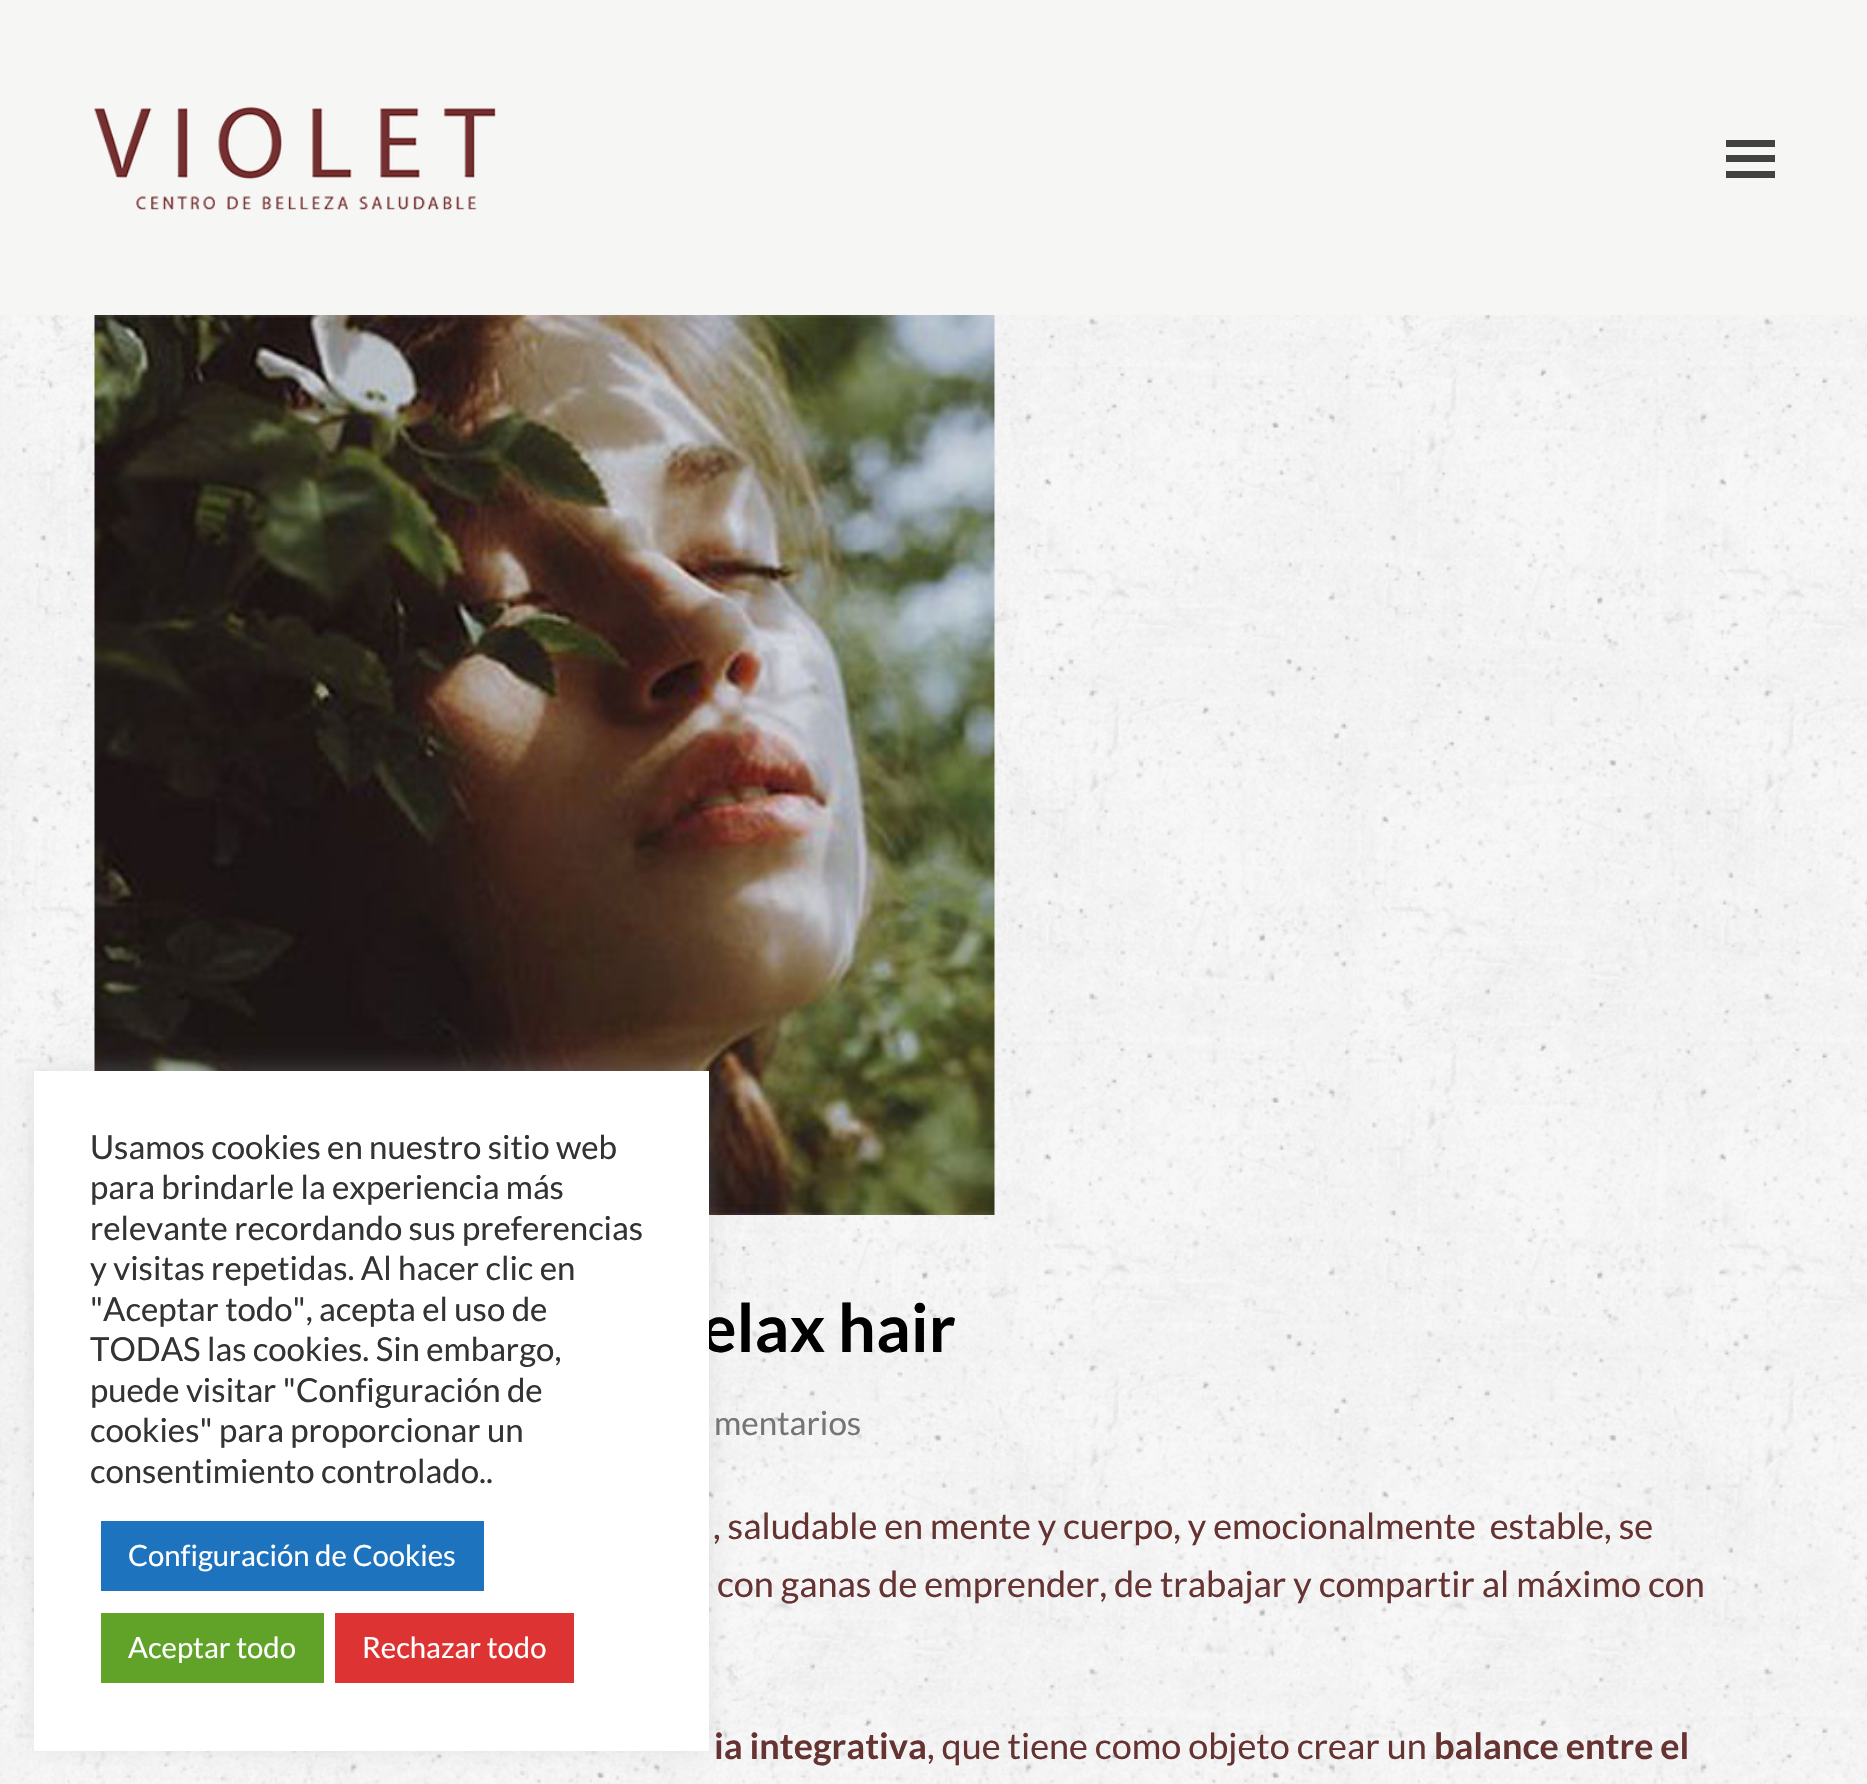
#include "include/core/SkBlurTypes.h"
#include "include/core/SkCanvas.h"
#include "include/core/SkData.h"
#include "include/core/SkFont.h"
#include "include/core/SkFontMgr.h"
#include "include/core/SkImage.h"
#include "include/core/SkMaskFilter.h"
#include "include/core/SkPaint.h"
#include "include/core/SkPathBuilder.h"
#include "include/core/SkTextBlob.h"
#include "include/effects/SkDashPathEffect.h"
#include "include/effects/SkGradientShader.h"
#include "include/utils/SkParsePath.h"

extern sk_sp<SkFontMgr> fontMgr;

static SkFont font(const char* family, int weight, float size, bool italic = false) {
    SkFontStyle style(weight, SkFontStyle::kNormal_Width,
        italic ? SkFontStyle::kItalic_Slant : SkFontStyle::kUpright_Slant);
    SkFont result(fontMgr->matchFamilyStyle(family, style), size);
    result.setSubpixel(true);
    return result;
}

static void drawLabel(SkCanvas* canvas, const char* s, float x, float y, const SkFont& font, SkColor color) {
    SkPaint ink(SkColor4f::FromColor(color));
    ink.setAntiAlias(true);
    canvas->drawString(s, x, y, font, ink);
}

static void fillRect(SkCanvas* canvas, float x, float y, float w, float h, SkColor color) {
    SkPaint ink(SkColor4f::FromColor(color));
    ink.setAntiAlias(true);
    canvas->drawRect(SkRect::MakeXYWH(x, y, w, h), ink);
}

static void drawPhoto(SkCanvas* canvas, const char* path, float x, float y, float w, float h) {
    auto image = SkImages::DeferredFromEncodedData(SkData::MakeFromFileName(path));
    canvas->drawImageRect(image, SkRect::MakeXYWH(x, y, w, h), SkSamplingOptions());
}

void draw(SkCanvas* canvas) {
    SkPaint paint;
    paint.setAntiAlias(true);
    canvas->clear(0xFFFFFFFF);
    drawPhoto(canvas, "assets/img1.png", 0, 315, 1867, 1469);
    drawPhoto(canvas, "assets/img3.png", 94, 315, 901, 900);
    paint.setColor(0x4DACABAB);
    paint.setMaskFilter(SkMaskFilter::MakeBlur(kNormal_SkBlurStyle, 11));
    canvas->drawRect(SkRect::MakeXYWH(34, 1069, 675, 679), paint);
    paint.setMaskFilter(nullptr);
    SkFont font1 = font("Lato", 700, 66.5f);
    drawLabel(canvas, "elax hair", 701, 1352, font1, 0xFF000000);
    fillRect(canvas, 34, 1071, 675, 680, 0xFFFFFFFF);
    SkFont font2 = font("Lato", 400, 33);
    drawLabel(canvas, "Usamos cookies en nuestro sitio web", 90, 1159, font2, 0xFF333333);
    drawLabel(canvas, "para brindarle la experiencia más", 90, 1199, font2, 0xFF333333);
    drawLabel(canvas, "relevante recordando sus preferencias", 90, 1240, font2, 0xFF333333);
    drawLabel(canvas, "y visitas repetidas. Al hacer clic en", 90, 1280, font2, 0xFF333333);
    drawLabel(canvas, "\"Aceptar todo\", acepta el uso de", 90, 1321, font2, 0xFF333333);
    drawLabel(canvas, "TODAS las cookies. Sin embargo,", 90, 1361, font2, 0xFF333333);
    drawLabel(canvas, "puede visitar \"Configuración de", 90, 1402, font2, 0xFF333333);
    drawLabel(canvas, "cookies\" para proporcionar un", 90, 1442, font2, 0xFF333333);
    drawLabel(canvas, "consentimiento controlado..", 90, 1483, font2, 0xFF333333);
    fillRect(canvas, 101, 1521, 383, 70, 0xFF1E73BE);
    SkFont font3 = font("Lato", 400, 29.25f);
    drawLabel(canvas, "Configuración de Cookies", 128, 1566, font3, 0xFFFFFFFF);
    fillRect(canvas, 101, 1613, 223, 70, 0xFF61A229);
    drawLabel(canvas, "Aceptar todo", 128, 1658, font3, 0xFFFFFFFF);
    fillRect(canvas, 335, 1613, 239, 70, 0xFFDD3333);
    drawLabel(canvas, "Rechazar todo", 362, 1658, font3, 0xFFFFFFFF);
    fillRect(canvas, 0, 0, 1867, 315, 0xFFF6F6F4);
    drawPhoto(canvas, "assets/img2.png", 94, 106, 403, 104);
    fillRect(canvas, 1726, 155, 49, 7, 0xFF414342);
    fillRect(canvas, 1726, 140, 49, 7, 0xFF414342);
    fillRect(canvas, 1726, 171, 49, 7, 0xFF414342);
    SkFont font4 = font("Lato", 400, 33.25f);
    drawLabel(canvas, "mentarios", 714, 1435, font4, 0xFF757575);
    SkFont font5 = font("Lato", 400, 36);
    drawLabel(canvas, ", saludable en mente y cuerpo, y emocionalmente  estable, se", 713, 1539, font5, 0xFF663333);
    drawLabel(canvas, "con ganas de emprender, de trabajar y compartir al máximo con", 717, 1597, font5, 0xFF663333);
    SkFont font6 = font("Lato", 700, 36);
    drawLabel(canvas, "ia integrativa", 714, 1759, font6, 0xFF663333);
    drawLabel(canvas, ", que tiene como objeto crear un", 927, 1759, font5, 0xFF663333);
    drawLabel(canvas, "balance entre el", 1434, 1759, font6, 0xFF663333);
}
